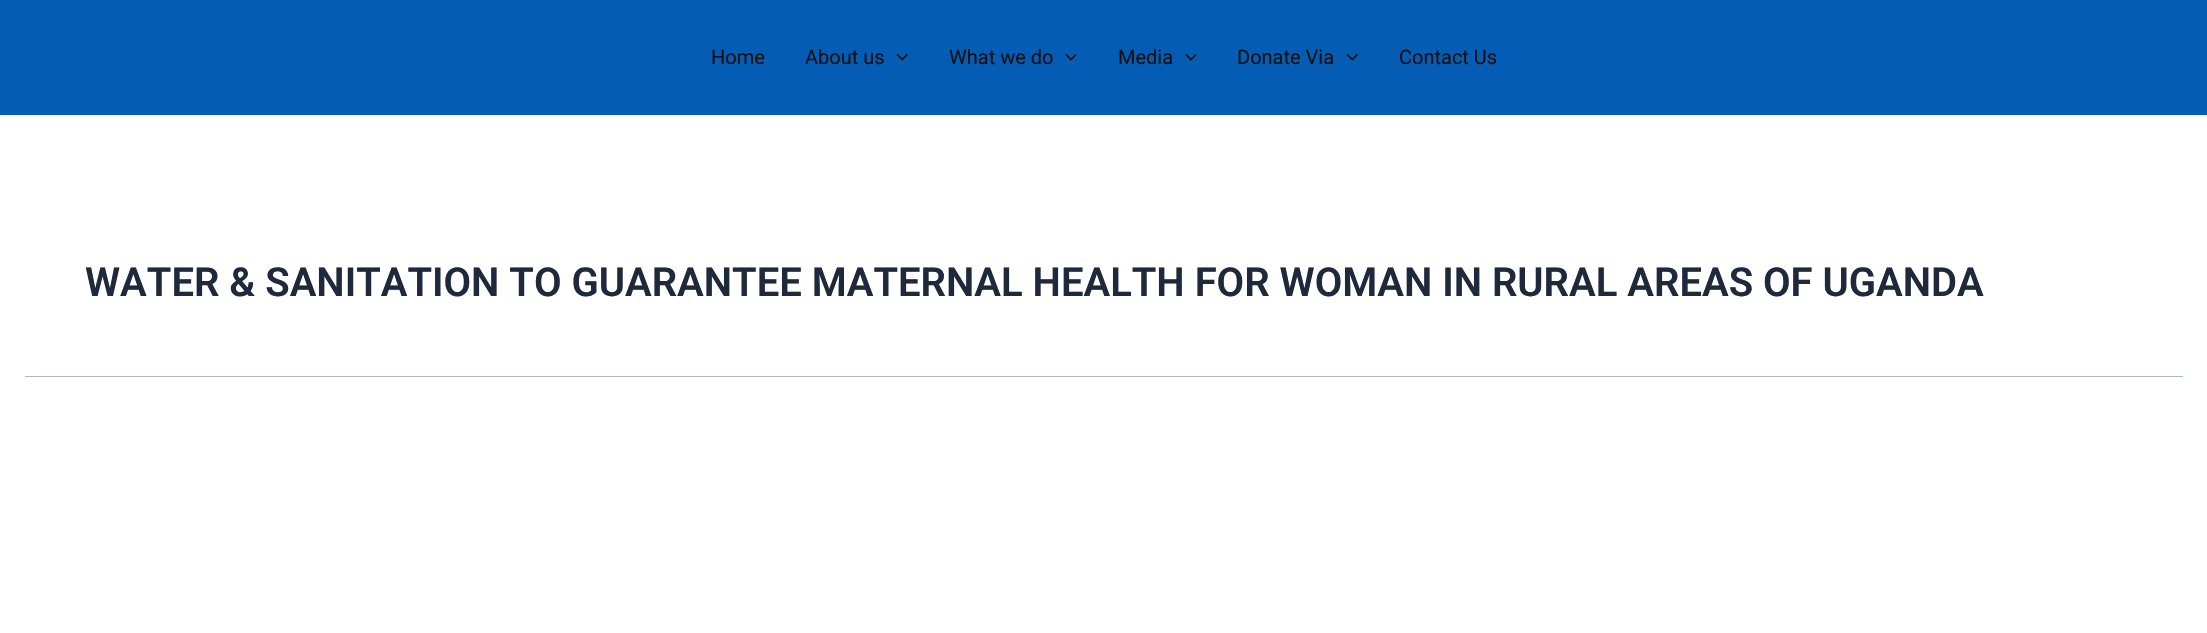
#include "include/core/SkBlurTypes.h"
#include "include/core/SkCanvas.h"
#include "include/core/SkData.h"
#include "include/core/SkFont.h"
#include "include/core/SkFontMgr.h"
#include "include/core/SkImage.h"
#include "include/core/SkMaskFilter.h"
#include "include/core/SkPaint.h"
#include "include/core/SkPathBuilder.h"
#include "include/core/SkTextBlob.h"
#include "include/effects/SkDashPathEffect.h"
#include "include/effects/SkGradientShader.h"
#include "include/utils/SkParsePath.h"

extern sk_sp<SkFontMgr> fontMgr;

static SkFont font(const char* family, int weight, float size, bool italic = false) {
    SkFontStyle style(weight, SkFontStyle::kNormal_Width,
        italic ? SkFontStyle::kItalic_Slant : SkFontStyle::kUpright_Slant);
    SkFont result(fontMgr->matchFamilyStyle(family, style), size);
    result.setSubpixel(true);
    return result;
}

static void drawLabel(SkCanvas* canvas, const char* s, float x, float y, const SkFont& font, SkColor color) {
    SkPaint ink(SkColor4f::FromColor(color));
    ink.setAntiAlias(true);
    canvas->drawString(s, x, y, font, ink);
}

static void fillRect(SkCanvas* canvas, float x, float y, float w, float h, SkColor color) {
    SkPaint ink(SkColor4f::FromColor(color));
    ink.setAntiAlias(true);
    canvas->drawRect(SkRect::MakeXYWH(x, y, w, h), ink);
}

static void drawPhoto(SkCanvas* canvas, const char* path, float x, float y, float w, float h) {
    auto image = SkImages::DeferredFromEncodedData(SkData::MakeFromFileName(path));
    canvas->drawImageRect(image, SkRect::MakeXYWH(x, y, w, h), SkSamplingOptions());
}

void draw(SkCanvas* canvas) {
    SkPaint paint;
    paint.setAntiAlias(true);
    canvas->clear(0xFFFFFFFF);
    fillRect(canvas, 0, 0, 2207, 115, 0xFF045CB4);
    SkFont font1 = font("Roboto", 400, 20);
    drawLabel(canvas, "Home", 711, 64, font1, 0xFF111111);
    drawLabel(canvas, "About us", 805, 64, font1, 0xFF111111);
    drawPhoto(canvas, "assets/img1.png", 896, 53, 12, 8);
    drawLabel(canvas, "What we do", 949, 64, font1, 0xFF111111);
    drawPhoto(canvas, "assets/img2.png", 1065, 53, 12, 8);
    drawLabel(canvas, "Media", 1118, 64, font1, 0xFF111111);
    drawPhoto(canvas, "assets/img2.png", 1185, 53, 12, 8);
    drawLabel(canvas, "Donate Via", 1237, 64, font1, 0xFF111111);
    drawPhoto(canvas, "assets/img1.png", 1346, 53, 12, 8);
    drawLabel(canvas, "Contact Us", 1399, 64, font1, 0xFF111111);
    fillRect(canvas, 25, 376, 2158, 1, 0xFFADB6BE);
    SkFont font2 = font("Roboto", 600, 40);
    drawLabel(canvas, "WATER & SANITATION TO GUARANTEE MATERNAL HEALTH FOR WOMAN IN RURAL AREAS OF UGANDA", 85, 296, font2, 0xFF1E293B);
}
